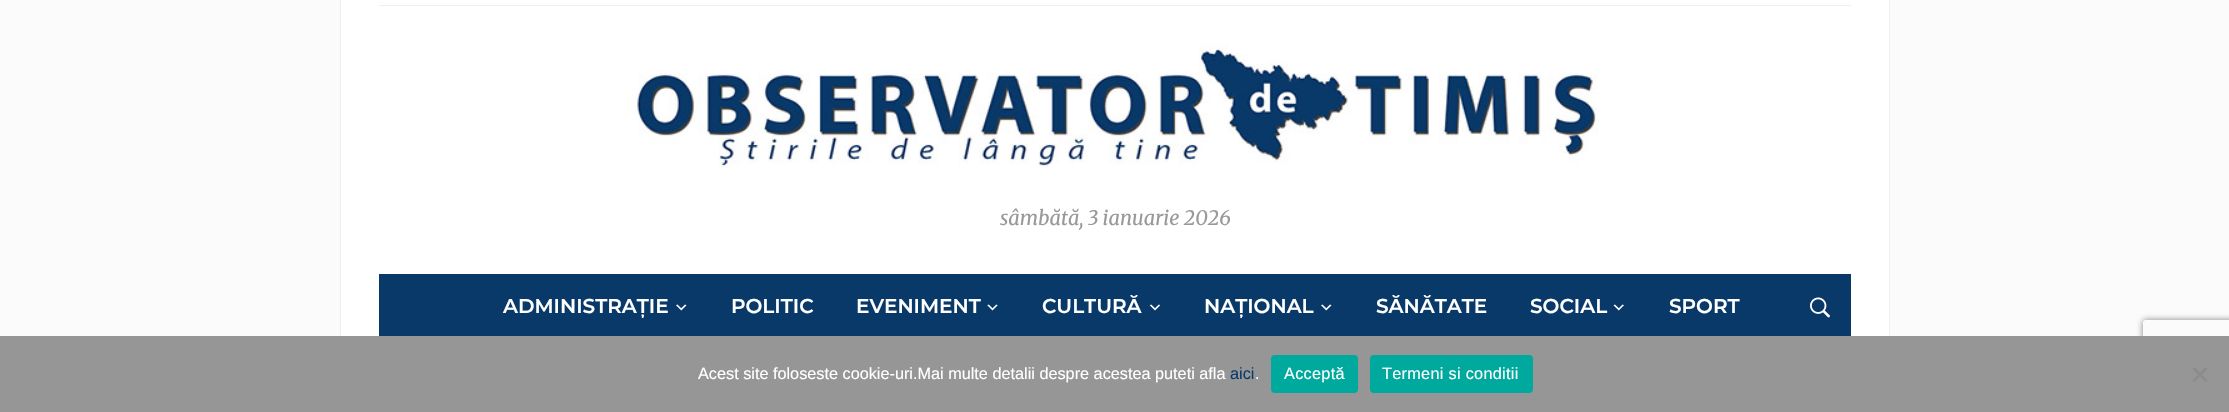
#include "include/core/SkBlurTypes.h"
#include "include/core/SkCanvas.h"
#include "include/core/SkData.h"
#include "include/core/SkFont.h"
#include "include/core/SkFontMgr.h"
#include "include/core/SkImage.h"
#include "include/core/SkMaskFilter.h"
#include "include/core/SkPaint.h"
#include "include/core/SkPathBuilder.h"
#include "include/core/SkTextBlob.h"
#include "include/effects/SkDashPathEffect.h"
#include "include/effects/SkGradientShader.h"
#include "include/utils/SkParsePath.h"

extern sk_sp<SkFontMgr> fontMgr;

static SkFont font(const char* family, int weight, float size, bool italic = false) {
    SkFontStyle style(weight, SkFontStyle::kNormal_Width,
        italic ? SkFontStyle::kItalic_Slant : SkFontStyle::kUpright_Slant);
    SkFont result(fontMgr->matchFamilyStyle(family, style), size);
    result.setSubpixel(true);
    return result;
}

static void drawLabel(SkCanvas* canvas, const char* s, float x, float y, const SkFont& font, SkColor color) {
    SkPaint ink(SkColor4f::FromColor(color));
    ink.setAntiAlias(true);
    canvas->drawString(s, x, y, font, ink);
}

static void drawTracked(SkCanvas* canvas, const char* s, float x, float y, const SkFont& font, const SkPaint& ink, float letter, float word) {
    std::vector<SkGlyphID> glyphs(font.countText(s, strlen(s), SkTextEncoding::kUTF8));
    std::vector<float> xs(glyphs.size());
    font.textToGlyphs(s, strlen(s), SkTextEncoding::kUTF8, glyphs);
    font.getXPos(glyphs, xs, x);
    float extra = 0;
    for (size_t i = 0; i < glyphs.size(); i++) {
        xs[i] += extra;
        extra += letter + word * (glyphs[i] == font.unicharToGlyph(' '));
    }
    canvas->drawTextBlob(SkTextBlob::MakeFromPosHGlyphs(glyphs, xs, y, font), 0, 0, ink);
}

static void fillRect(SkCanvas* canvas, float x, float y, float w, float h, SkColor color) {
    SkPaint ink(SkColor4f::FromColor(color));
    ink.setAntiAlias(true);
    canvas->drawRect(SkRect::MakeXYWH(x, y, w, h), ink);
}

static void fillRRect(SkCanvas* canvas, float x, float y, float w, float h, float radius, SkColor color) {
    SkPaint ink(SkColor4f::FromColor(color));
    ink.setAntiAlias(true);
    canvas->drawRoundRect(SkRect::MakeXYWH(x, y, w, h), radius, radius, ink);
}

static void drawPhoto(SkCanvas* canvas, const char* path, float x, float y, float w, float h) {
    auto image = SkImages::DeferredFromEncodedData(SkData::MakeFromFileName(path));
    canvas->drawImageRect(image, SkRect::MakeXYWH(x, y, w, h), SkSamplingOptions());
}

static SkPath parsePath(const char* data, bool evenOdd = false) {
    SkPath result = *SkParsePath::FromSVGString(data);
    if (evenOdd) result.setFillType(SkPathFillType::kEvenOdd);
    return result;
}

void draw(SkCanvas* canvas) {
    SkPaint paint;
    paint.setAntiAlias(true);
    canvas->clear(0xFFFBFBFB);
    fillRect(canvas, 341, 0, 1548, 336, 0xFFFFFFFF);
    fillRect(canvas, 1889, 0, 1, 336, 0xFFEEEEEE);
    fillRect(canvas, 340, 0, 1, 336, 0xFFEEEEEE);
    fillRect(canvas, 379, 5, 1472, 1, 0xFFEEEEEE);
    drawPhoto(canvas, "assets/img1.png", 629, 44, 970, 124);
    SkFont font1 = font("Merriweather", 400, 20, true);
    drawLabel(canvas, "sâmbătă, 3 ianuarie 2026", 1000, 225, font1, 0xFF999999);
    fillRect(canvas, 379, 274, 1472, 62, 0xFF093969);
    SkFont font2 = font("Montserrat", 600, 20);
    drawLabel(canvas, "ADMINISTRAȚIE", 503, 313, font2, 0xFFFFFFFF);
    drawPhoto(canvas, "assets/img2.png", 676, 304, 11, 7);
    drawLabel(canvas, "POLITIC", 731, 313, font2, 0xFFFFFFFF);
    drawLabel(canvas, "EVENIMENT", 856, 313, font2, 0xFFFFFFFF);
    drawPhoto(canvas, "assets/img3.png", 987, 304, 11, 7);
    drawLabel(canvas, "CULTURĂ", 1042, 313, font2, 0xFFFFFFFF);
    drawPhoto(canvas, "assets/img4.png", 1149, 304, 12, 7);
    drawLabel(canvas, "NAȚIONAL", 1204, 313, font2, 0xFFFFFFFF);
    drawPhoto(canvas, "assets/img2.png", 1321, 304, 11, 7);
    drawLabel(canvas, "SĂNĂTATE", 1376, 313, font2, 0xFFFFFFFF);
    drawLabel(canvas, "SOCIAL", 1530, 313, font2, 0xFFFFFFFF);
    drawPhoto(canvas, "assets/img5.png", 1613, 304, 11, 7);
    drawLabel(canvas, "SPORT", 1669, 313, font2, 0xFFFFFFFF);
    drawPhoto(canvas, "assets/img6.png", 1810, 297, 20, 21);
    canvas->save();
    canvas->clipPath(parsePath("M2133 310H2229V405H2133ZM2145.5 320H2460.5C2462 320 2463 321 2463 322.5V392.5C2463 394 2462 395 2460.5 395H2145.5C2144 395 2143 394 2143 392.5V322.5C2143 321 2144 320 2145.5 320Z", true), true);
    paint.setColor(0xFF808080);
    paint.setMaskFilter(SkMaskFilter::MakeBlur(kNormal_SkBlurStyle, 3));
    canvas->drawRoundRect(SkRect::MakeXYWH(2143, 320, 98, 75), 2.5f, 2.5f, paint);
    paint.setMaskFilter(nullptr);
    canvas->restore();
    fillRect(canvas, 0, 336, 2229, 76, 0xFF969696);
    SkFont font3 = font("Liberation Sans", 400, 16.25f);
    drawLabel(canvas, "Acest site foloseste cookie-uri.Mai multe detalii despre acestea puteti afla", 698, 379, font3, 0xFFFFFFFF);
    drawLabel(canvas, "aici", 1230, 379, font3, 0xFF093969);
    drawLabel(canvas, ".", 1255, 379, font3, 0xFFFFFFFF);
    fillRRect(canvas, 1271, 355, 87, 38, 4, 0xFF00A99D);
    paint.setColor(0xFFFFFFFF);
    drawTracked(canvas, "Acceptă", 1284, 379, font3, paint, 0.3f, 0);
    fillRRect(canvas, 1370, 355, 163, 38, 4, 0xFF00A99D);
    drawTracked(canvas, "Termeni si conditii", 1382, 379, font3, paint, 0.3f, 0);
    paint.setColor(0xFF8B8B8B);
    canvas->drawPath(parsePath("M2205.5 367L2207.5 369L2194.5 382L2192.5 380.5Z"), paint);
    canvas->drawPath(parsePath("M2192.5 369L2194.5 367L2207.5 380.5L2205.5 382Z"), paint);
}
